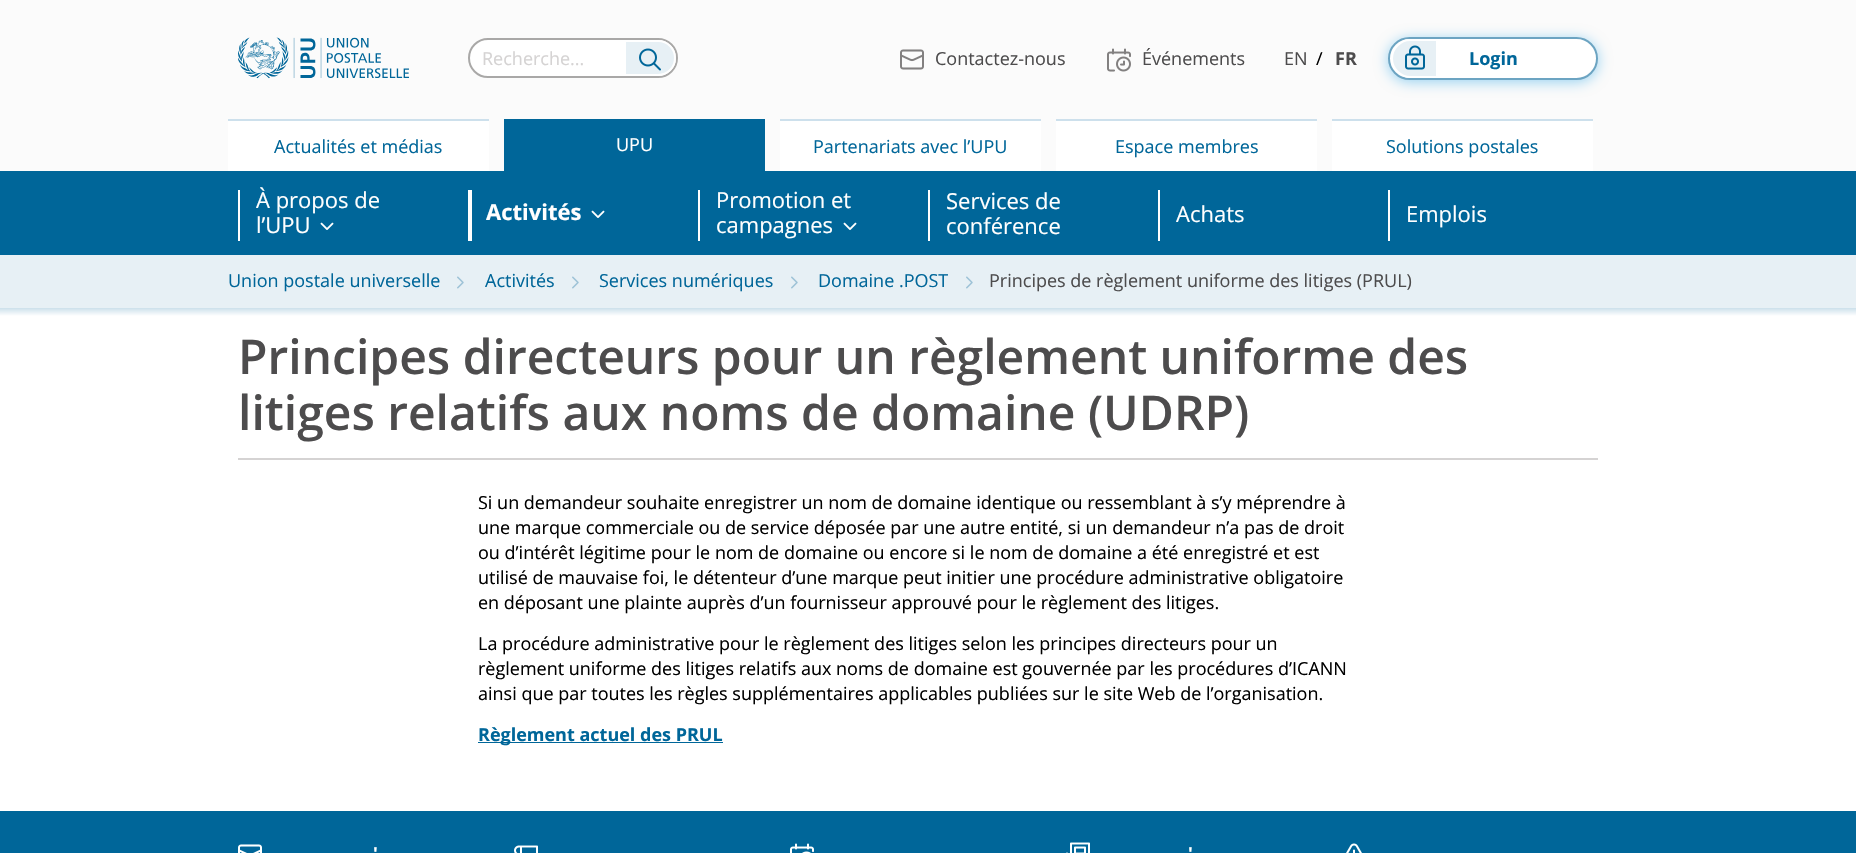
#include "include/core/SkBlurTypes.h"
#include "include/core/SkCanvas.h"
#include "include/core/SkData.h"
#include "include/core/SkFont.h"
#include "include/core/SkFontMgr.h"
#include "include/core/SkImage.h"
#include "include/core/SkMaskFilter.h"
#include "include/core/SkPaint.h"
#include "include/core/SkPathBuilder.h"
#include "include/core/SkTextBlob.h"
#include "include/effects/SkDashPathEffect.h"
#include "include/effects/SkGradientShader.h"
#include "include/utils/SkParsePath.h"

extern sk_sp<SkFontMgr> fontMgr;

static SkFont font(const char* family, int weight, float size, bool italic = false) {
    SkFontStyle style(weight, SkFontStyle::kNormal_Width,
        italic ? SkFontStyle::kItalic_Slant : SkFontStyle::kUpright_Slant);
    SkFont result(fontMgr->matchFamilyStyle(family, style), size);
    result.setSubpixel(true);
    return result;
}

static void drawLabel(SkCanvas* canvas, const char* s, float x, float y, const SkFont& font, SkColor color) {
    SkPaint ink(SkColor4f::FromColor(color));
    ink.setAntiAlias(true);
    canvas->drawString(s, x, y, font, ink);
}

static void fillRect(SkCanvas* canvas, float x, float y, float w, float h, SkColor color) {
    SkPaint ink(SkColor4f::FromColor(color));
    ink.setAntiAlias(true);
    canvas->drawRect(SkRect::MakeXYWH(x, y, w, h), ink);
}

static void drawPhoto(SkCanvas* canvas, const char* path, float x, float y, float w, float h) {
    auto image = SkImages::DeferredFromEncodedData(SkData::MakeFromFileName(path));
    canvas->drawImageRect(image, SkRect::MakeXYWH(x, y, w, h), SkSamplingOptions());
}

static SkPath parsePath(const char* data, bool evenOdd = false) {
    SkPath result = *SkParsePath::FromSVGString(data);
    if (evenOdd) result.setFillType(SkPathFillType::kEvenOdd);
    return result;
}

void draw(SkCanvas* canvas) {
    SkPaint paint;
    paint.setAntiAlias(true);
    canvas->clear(0xFFFFFFFF);
    fillRect(canvas, 0, 0, 1856, 171, 0xFFFBFBFB);
    drawPhoto(canvas, "assets/img1.png", 238, 37, 171, 42);
    paint.setColor(0xFFFFFFFF);
    canvas->drawRoundRect(SkRect::MakeXYWH(469, 39, 208, 38), 19, 19, paint);
    paint.setStroke(true);
    paint.setStrokeWidth(2);
    paint.setColor(0xFFA9A8A7);
    canvas->drawRoundRect(SkRect::MakeXYWH(469, 39, 208, 38), 19, 19, paint);
    SkFont font1 = font("Open Sans", 400, 18);
    drawLabel(canvas, "Recherche...", 482, 65, font1, 0xFFD5D3D3);
    paint.setStroke(false);
    paint.setColor(0xFFE7F0F5);
    canvas->drawPath(parsePath("M625 41H658C667.5 41 675 48.5 675 58C675 67.5 667.5 75 658 75H625Z"), paint);
    paint.setStroke(true);
    paint.setColor(0xFFFFFFFF);
    canvas->drawPath(parsePath("M625 41H658C667.5 41 675 48.5 675 58C675 67.5 667.5 75 658 75H625Z"), paint);
    drawPhoto(canvas, "assets/img2.png", 639, 48, 22, 23);
    drawPhoto(canvas, "assets/img3.png", 900, 49, 24, 21);
    drawLabel(canvas, "Contactez-nous", 935, 65, font1, 0xFF4D4C4D);
    drawPhoto(canvas, "assets/img4.png", 1107, 48, 24, 24);
    drawLabel(canvas, "Événements", 1142, 65, font1, 0xFF4D4C4D);
    drawLabel(canvas, "EN", 1284, 65, font1, 0xFF4D4C4D);
    drawLabel(canvas, "/", 1316, 65, font1, 0xFF000000);
    SkFont font2 = font("Open Sans", 700, 18);
    drawLabel(canvas, "FR", 1335, 65, font2, 0xFF4D4C4D);
    paint.setStroke(false);
    paint.setColor(0xFF95D1F1);
    paint.setMaskFilter(SkMaskFilter::MakeBlur(kNormal_SkBlurStyle, 7));
    canvas->drawRoundRect(SkRect::MakeXYWH(1388, 39, 210, 43), 21.5f, 21.5f, paint);
    paint.setMaskFilter(nullptr);
    paint.setColor(0xFFFFFFFF);
    canvas->drawRoundRect(SkRect::MakeXYWH(1389, 38, 208, 41), 20.5f, 20.5f, paint);
    paint.setStroke(true);
    paint.setColor(0xFF6CA4C2);
    canvas->drawRoundRect(SkRect::MakeXYWH(1389, 38, 208, 41), 20.5f, 20.5f, paint);
    paint.setStroke(false);
    paint.setColor(0xFFE7F0F5);
    canvas->drawPath(parsePath("M1410.5 40H1437V77H1410.5C1400.5 77 1392 68.5 1392 58.5C1392 48.5 1400.5 40 1410.5 40Z"), paint);
    paint.setStroke(true);
    paint.setColor(0xFFFFFFFF);
    canvas->drawPath(parsePath("M1410.5 40H1437V77H1410.5C1400.5 77 1392 68.5 1392 58.5C1392 48.5 1400.5 40 1410.5 40Z"), paint);
    drawPhoto(canvas, "assets/img5.png", 1405, 45, 20, 25);
    drawLabel(canvas, "Login", 1469, 65, font2, 0xFF006699);
    fillRect(canvas, 228, 121, 261, 50, 0xFFFFFFFF);
    fillRect(canvas, 228, 119, 261, 2, 0xFFCDE0EC);
    drawLabel(canvas, "Actualités et médias", 274, 153, font1, 0xFF006699);
    fillRect(canvas, 504, 119, 261, 52, 0xFF006699);
    drawLabel(canvas, "UPU", 616, 151, font1, 0xFFFFFFFF);
    fillRect(canvas, 780, 121, 261, 50, 0xFFFFFFFF);
    fillRect(canvas, 780, 119, 261, 2, 0xFFCDE0EC);
    drawLabel(canvas, "Partenariats avec l’UPU", 813, 153, font1, 0xFF006699);
    fillRect(canvas, 1056, 121, 261, 50, 0xFFFFFFFF);
    fillRect(canvas, 1056, 119, 261, 2, 0xFFCDE0EC);
    drawLabel(canvas, "Espace membres", 1115, 153, font1, 0xFF006699);
    fillRect(canvas, 1332, 121, 261, 50, 0xFFFFFFFF);
    fillRect(canvas, 1332, 119, 261, 2, 0xFFCDE0EC);
    drawLabel(canvas, "Solutions postales", 1386, 153, font1, 0xFF006699);
    fillRect(canvas, 0, 171, 1856, 84, 0xFF006699);
    fillRect(canvas, 238, 190, 2, 51, 0xFFFFFFFF);
    SkFont font3 = font("Open Sans", 400, 22);
    drawLabel(canvas, "À propos de", 256, 208, font3, 0xFFFFFFFF);
    drawLabel(canvas, "l’UPU", 256, 233, font3, 0xFFFFFFFF);
    drawPhoto(canvas, "assets/img6.png", 320, 222, 14, 8);
    fillRect(canvas, 468, 190, 4, 51, 0xFFFFFFFF);
    SkFont font4 = font("Open Sans", 700, 22);
    drawLabel(canvas, "Activités", 486, 220, font4, 0xFFFFFFFF);
    drawPhoto(canvas, "assets/img6.png", 591, 210, 14, 8);
    fillRect(canvas, 698, 190, 2, 51, 0xFFFFFFFF);
    drawLabel(canvas, "Promotion et", 716, 208, font3, 0xFFFFFFFF);
    drawLabel(canvas, "campagnes", 716, 233, font3, 0xFFFFFFFF);
    drawPhoto(canvas, "assets/img6.png", 843, 222, 14, 8);
    fillRect(canvas, 928, 190, 2, 51, 0xFFFFFFFF);
    drawLabel(canvas, "Services de", 946, 209, font3, 0xFFFFFFFF);
    drawLabel(canvas, "conférence", 946, 234, font3, 0xFFFFFFFF);
    fillRect(canvas, 1158, 190, 2, 51, 0xFFFFFFFF);
    drawLabel(canvas, "Achats", 1176, 222, font3, 0xFFFFFFFF);
    fillRect(canvas, 1388, 190, 2, 51, 0xFFFFFFFF);
    drawLabel(canvas, "Emplois", 1406, 222, font3, 0xFFFFFFFF);
    fillRect(canvas, 0, 255, 1856, 53, 0xFFE7F0F5);
    drawLabel(canvas, "Union postale universelle", 228, 287, font1, 0xFF006699);
    drawPhoto(canvas, "assets/img7.png", 457, 276, 7, 13);
    drawLabel(canvas, "Activités", 485, 287, font1, 0xFF006699);
    drawPhoto(canvas, "assets/img7.png", 572, 276, 7, 13);
    drawLabel(canvas, "Services numériques", 599, 287, font1, 0xFF006699);
    drawPhoto(canvas, "assets/img7.png", 791, 276, 7, 13);
    drawLabel(canvas, "Domaine .POST", 818, 287, font1, 0xFF006699);
    drawPhoto(canvas, "assets/img7.png", 966, 276, 7, 13);
    drawLabel(canvas, "Principes de règlement uniforme des litiges (PRUL)", 989, 287, font1, 0xFF4D4C4D);
    paint.setStroke(false);
    {
        const SkColor colors[] = {0xFFCCE0EB, 0xFFFFFFFF};
        const float stops[] = {0, 1};
        const SkPoint ends[] = {{928, 308}, {928, 316}};
        paint.setShader(SkGradientShader::MakeLinear(ends, colors, stops, 2, SkTileMode::kClamp));
        paint.setAlpha(255);
    }
    canvas->drawRect(SkRect::MakeXYWH(0, 308, 1856, 8), paint);
    fillRect(canvas, 238, 458, 1360, 2, 0xFFD5D3D3);
    SkFont font5 = font("Open Sans", 600, 48);
    drawLabel(canvas, "Principes directeurs pour un règlement uniforme des", 238, 374, font5, 0xFF4D4C4D);
    drawLabel(canvas, "litiges relatifs aux noms de domaine (UDRP)", 238, 430, font5, 0xFF4D4C4D);
    drawLabel(canvas, "Si un demandeur souhaite enregistrer un nom de domaine identique ou ressemblant à s’y méprendre à", 478, 509, font1, 0xFF000000);
    drawLabel(canvas, "une marque commerciale ou de service déposée par une autre entité, si un demandeur n’a pas de droit", 478, 534, font1, 0xFF000000);
    drawLabel(canvas, "ou d’intérêt légitime pour le nom de domaine ou encore si le nom de domaine a été enregistré et est", 478, 559, font1, 0xFF000000);
    drawLabel(canvas, "utilisé de mauvaise foi, le détenteur d’une marque peut initier une procédure administrative obligatoire", 478, 584, font1, 0xFF000000);
    drawLabel(canvas, "en déposant une plainte auprès d’un fournisseur approuvé pour le règlement des litiges.", 478, 609, font1, 0xFF000000);
    drawLabel(canvas, "La procédure administrative pour le règlement des litiges selon les principes directeurs pour un", 478, 650, font1, 0xFF000000);
    drawLabel(canvas, "règlement uniforme des litiges relatifs aux noms de domaine est gouvernée par les procédures d’ICANN", 478, 675, font1, 0xFF000000);
    drawLabel(canvas, "ainsi que par toutes les règles supplémentaires applicables publiées sur le site Web de l’organisation.", 478, 700, font1, 0xFF000000);
    fillRect(canvas, 478, 742, 245, 1, 0xFF006699);
    drawLabel(canvas, "Règlement actuel des PRUL", 478, 741, font2, 0xFF006699);
    fillRect(canvas, 0, 811, 1856, 42, 0xFF006699);
    drawPhoto(canvas, "assets/img8.png", 238, 844, 24, 9);
    drawLabel(canvas, "'", 373, 860, font2, 0xFFFFFFFF);
    drawPhoto(canvas, "assets/img9.png", 514, 845, 24, 8);
    drawPhoto(canvas, "assets/img10.png", 790, 843, 24, 10);
    drawPhoto(canvas, "assets/img11.png", 1066, 842, 24, 11);
    drawLabel(canvas, "'", 1188, 860, font2, 0xFFFFFFFF);
    drawPhoto(canvas, "assets/img12.png", 1346, 843, 16, 10);
}
